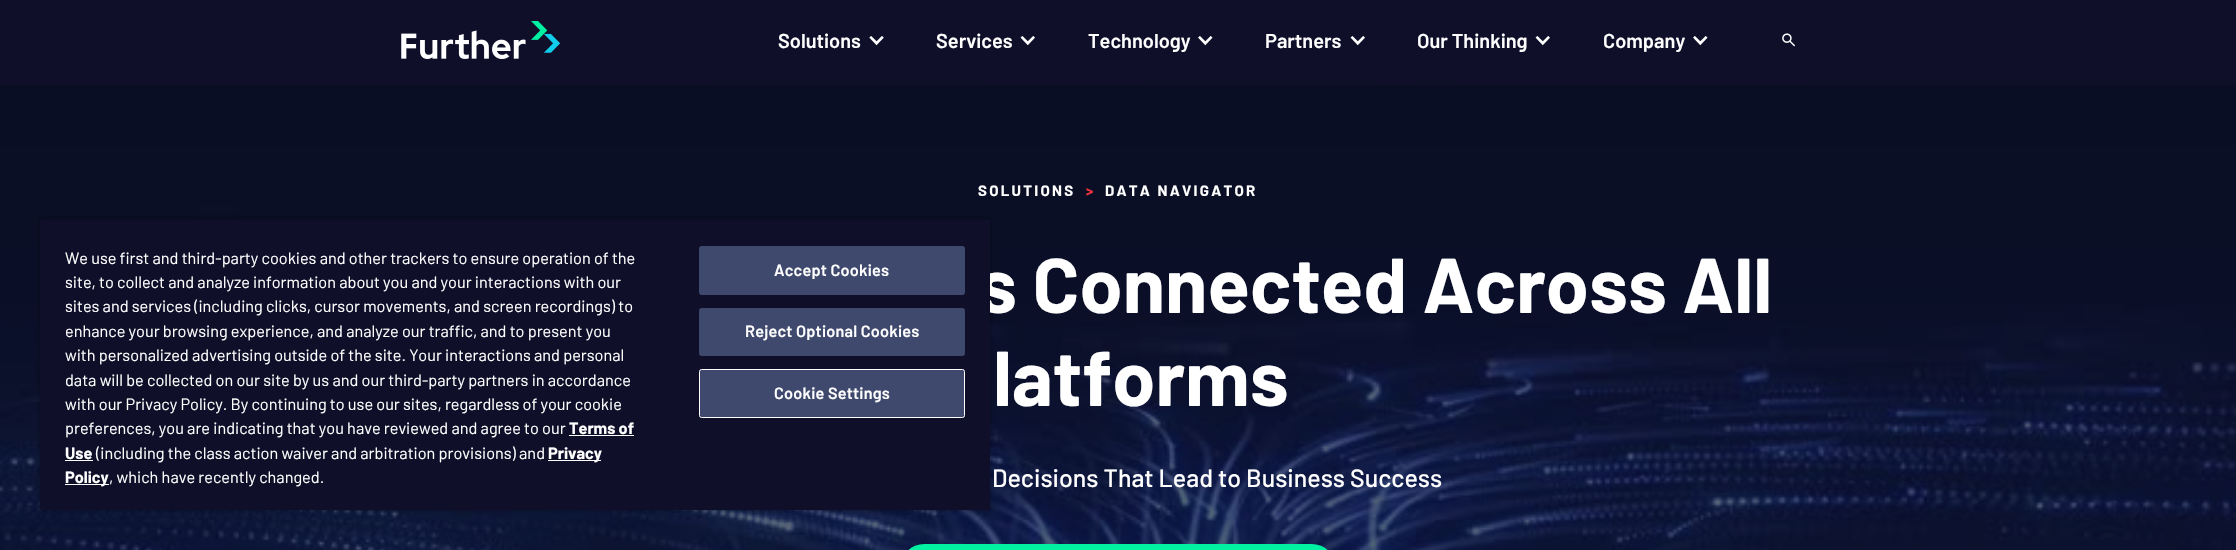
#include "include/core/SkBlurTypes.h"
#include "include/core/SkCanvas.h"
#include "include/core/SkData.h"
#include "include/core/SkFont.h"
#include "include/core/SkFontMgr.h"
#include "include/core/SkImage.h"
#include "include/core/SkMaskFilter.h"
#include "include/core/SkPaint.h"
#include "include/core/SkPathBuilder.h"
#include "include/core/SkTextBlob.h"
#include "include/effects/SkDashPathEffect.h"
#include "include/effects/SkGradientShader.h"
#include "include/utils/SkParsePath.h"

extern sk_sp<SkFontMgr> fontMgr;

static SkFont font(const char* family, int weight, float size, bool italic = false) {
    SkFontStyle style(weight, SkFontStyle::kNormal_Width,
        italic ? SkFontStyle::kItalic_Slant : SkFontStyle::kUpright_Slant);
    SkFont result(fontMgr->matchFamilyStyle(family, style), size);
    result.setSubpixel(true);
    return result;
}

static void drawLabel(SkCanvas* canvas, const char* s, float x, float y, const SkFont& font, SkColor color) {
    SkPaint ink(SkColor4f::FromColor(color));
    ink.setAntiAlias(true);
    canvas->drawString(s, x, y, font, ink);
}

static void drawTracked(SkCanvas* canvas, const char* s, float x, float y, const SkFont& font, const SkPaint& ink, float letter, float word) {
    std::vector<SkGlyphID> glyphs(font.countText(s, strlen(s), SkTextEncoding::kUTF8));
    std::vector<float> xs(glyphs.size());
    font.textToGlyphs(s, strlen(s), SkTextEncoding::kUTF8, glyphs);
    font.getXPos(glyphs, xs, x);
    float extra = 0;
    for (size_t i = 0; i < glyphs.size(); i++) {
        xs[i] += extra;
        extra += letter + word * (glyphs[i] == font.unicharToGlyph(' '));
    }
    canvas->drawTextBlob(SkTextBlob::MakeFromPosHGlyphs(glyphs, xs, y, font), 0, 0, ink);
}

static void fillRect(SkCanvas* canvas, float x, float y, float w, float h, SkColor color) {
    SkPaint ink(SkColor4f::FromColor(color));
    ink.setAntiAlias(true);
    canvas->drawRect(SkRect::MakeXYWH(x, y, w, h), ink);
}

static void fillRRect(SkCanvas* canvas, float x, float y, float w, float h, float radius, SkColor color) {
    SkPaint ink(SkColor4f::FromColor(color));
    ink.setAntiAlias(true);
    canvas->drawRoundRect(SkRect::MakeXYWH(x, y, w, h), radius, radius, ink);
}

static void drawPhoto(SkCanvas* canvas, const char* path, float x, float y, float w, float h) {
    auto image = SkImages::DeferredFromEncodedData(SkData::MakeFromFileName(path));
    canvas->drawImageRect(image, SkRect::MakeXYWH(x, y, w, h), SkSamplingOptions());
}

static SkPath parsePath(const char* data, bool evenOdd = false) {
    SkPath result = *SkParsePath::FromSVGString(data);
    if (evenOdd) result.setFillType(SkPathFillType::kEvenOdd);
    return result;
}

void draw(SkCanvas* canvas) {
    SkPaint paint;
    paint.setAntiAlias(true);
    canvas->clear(0xFFFFFFFF);
    fillRect(canvas, 0, 0, 2236, 85, 0xFF0F0F2A);
    drawPhoto(canvas, "assets/img1.png", 401, 21, 159, 38);
    SkFont font1 = font("Barlow", 600, 20);
    drawLabel(canvas, "Solutions", 778, 48, font1, 0xFFFFFFFF);
    drawPhoto(canvas, "assets/img2.png", 869, 36, 15, 10);
    drawLabel(canvas, "Services", 936, 48, font1, 0xFFFFFFFF);
    drawPhoto(canvas, "assets/img3.png", 1020, 36, 15, 10);
    drawLabel(canvas, "Technology", 1088, 48, font1, 0xFFFFFFFF);
    drawPhoto(canvas, "assets/img4.png", 1198, 36, 15, 10);
    drawLabel(canvas, "Partners", 1265, 48, font1, 0xFFFFFFFF);
    drawPhoto(canvas, "assets/img3.png", 1350, 36, 15, 10);
    drawLabel(canvas, "Our Thinking", 1417, 48, font1, 0xFFFFFFFF);
    drawPhoto(canvas, "assets/img3.png", 1535, 36, 15, 10);
    drawLabel(canvas, "Company", 1603, 48, font1, 0xFFFFFFFF);
    drawPhoto(canvas, "assets/img4.png", 1693, 36, 15, 10);
    drawPhoto(canvas, "assets/img5.png", 1782, 33, 13, 14);
    drawPhoto(canvas, "assets/img6.png", 0, 85, 2236, 465);
    canvas->save();
    canvas->clipPath(parsePath("M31 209H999V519H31ZM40 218H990V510H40Z", true), true);
    paint.setColor(0x59000000);
    paint.setMaskFilter(SkMaskFilter::MakeBlur(kNormal_SkBlurStyle, 2.5f));
    canvas->drawRect(SkRect::MakeXYWH(40, 218, 950, 292), paint);
    paint.setMaskFilter(nullptr);
    canvas->restore();
    canvas->save();
    canvas->clipRect(SkRect::MakeXYWH(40, 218, 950, 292));
    paint.setColor(0x33000000);
    paint.setMaskFilter(SkMaskFilter::MakeBlur(kNormal_SkBlurStyle, 2.5f));
    canvas->drawRect(SkRect::MakeXYWH(40, 220, 950, 290), paint);
    paint.setMaskFilter(nullptr);
    canvas->restore();
    SkFont font2 = font("Barlow", 700, 77.5f);
    drawLabel(canvas, "s Connected Across All", 978, 313, font2, 0xFFFFFFFF);
    fillRect(canvas, 40, 220, 950, 290, 0xFF0F0F2A);
    SkFont font3 = font("Barlow", 400, 16.25f);
    drawLabel(canvas, "We use first and third-party cookies and other trackers to ensure operation of the", 65, 264, font3, 0xFFFFFFFF);
    drawLabel(canvas, "site, to collect and analyze information about you and your interactions with our", 65, 288, font3, 0xFFFFFFFF);
    drawLabel(canvas, "sites and services (including clicks, cursor movements, and screen recordings) to", 65, 312, font3, 0xFFFFFFFF);
    drawLabel(canvas, "enhance your browsing experience, and analyze our traffic, and to present you", 65, 337, font3, 0xFFFFFFFF);
    drawLabel(canvas, "with personalized advertising outside of the site. Your interactions and personal", 65, 361, font3, 0xFFFFFFFF);
    drawLabel(canvas, "data will be collected on our site by us and our third-party partners in accordance", 65, 386, font3, 0xFFFFFFFF);
    drawLabel(canvas, "with our Privacy Policy. By continuing to use our sites, regardless of your cookie", 65, 410, font3, 0xFFFFFFFF);
    drawLabel(canvas, "preferences, you are indicating that you have reviewed and agree to our", 65, 434, font3, 0xFFFFFFFF);
    SkFont font4 = font("Barlow", 700, 16.25f);
    drawLabel(canvas, "Terms of", 569, 434, font4, 0xFFFFFFFF);
    fillRect(canvas, 569, 435, 65, 1, 0xFFFFFFFF);
    drawLabel(canvas, "Use", 65, 459, font4, 0xFFFFFFFF);
    fillRect(canvas, 65, 460, 28, 1, 0xFFFFFFFF);
    drawLabel(canvas, "(including the class action waiver and arbitration provisions) and", 96, 459, font3, 0xFFFFFFFF);
    fillRect(canvas, 548, 460, 53, 1, 0xFFFFFFFF);
    drawLabel(canvas, "Privacy", 548, 459, font4, 0xFFFFFFFF);
    fillRect(canvas, 65, 484, 44, 1, 0xFFFFFFFF);
    drawLabel(canvas, "Policy", 65, 483, font4, 0xFFFFFFFF);
    drawLabel(canvas, ", which have recently changed.", 109, 483, font3, 0xFFFFFFFF);
    paint.setColor(0xFF3F496D);
    canvas->drawRoundRect(SkRect::MakeXYWH(699.5f, 246.5f, 265, 48), 2, 2, paint);
    paint.setStroke(true);
    paint.setStrokeWidth(1);
    canvas->drawRoundRect(SkRect::MakeXYWH(699.5f, 246.5f, 265, 48), 2, 2, paint);
    SkFont font5 = font("Barlow", 600, 16.25f);
    paint.setStroke(false);
    paint.setColor(0xFFFFFFFF);
    drawTracked(canvas, "Accept Cookies", 774, 276, font5, paint, 0.2f, 0);
    paint.setColor(0xFF3F496D);
    canvas->drawRoundRect(SkRect::MakeXYWH(699.5f, 308.5f, 265, 47), 2, 2, paint);
    paint.setStroke(true);
    canvas->drawRoundRect(SkRect::MakeXYWH(699.5f, 308.5f, 265, 47), 2, 2, paint);
    paint.setStroke(false);
    paint.setColor(0xFFFFFFFF);
    drawTracked(canvas, "Reject Optional Cookies", 745, 337, font5, paint, 0.2f, 0);
    paint.setColor(0xFF3F496D);
    canvas->drawRoundRect(SkRect::MakeXYWH(699.5f, 369.5f, 265, 48), 2, 2, paint);
    paint.setStroke(true);
    paint.setColor(0xFFFFFFFF);
    canvas->drawRoundRect(SkRect::MakeXYWH(699.5f, 369.5f, 265, 48), 2, 2, paint);
    paint.setStroke(false);
    drawTracked(canvas, "Cookie Settings", 774, 399, font5, paint, 0.2f, 0);
    SkFont font6 = font("Barlow", 700, 15);
    drawTracked(canvas, "SOLUTIONS", 978, 196, font6, paint, 2.25f, 0);
    paint.setColor(0xFFF63241);
    drawTracked(canvas, ">", 1086, 196, font6, paint, 2.25f, 0);
    paint.setColor(0xFFFFFFFF);
    drawTracked(canvas, "DATA NAVIGATOR", 1105, 196, font6, paint, 2.25f, 0);
    drawLabel(canvas, "latforms", 993, 406, font2, 0xFFFFFFFF);
    SkFont font7 = font("Barlow", 500, 25);
    drawLabel(canvas, "Decisions That Lead to Business Success", 992, 487, font7, 0xFFFFFFFF);
    fillRRect(canvas, 900, 544, 436, 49, 42.5f, 0xFF00F1A1);
}
